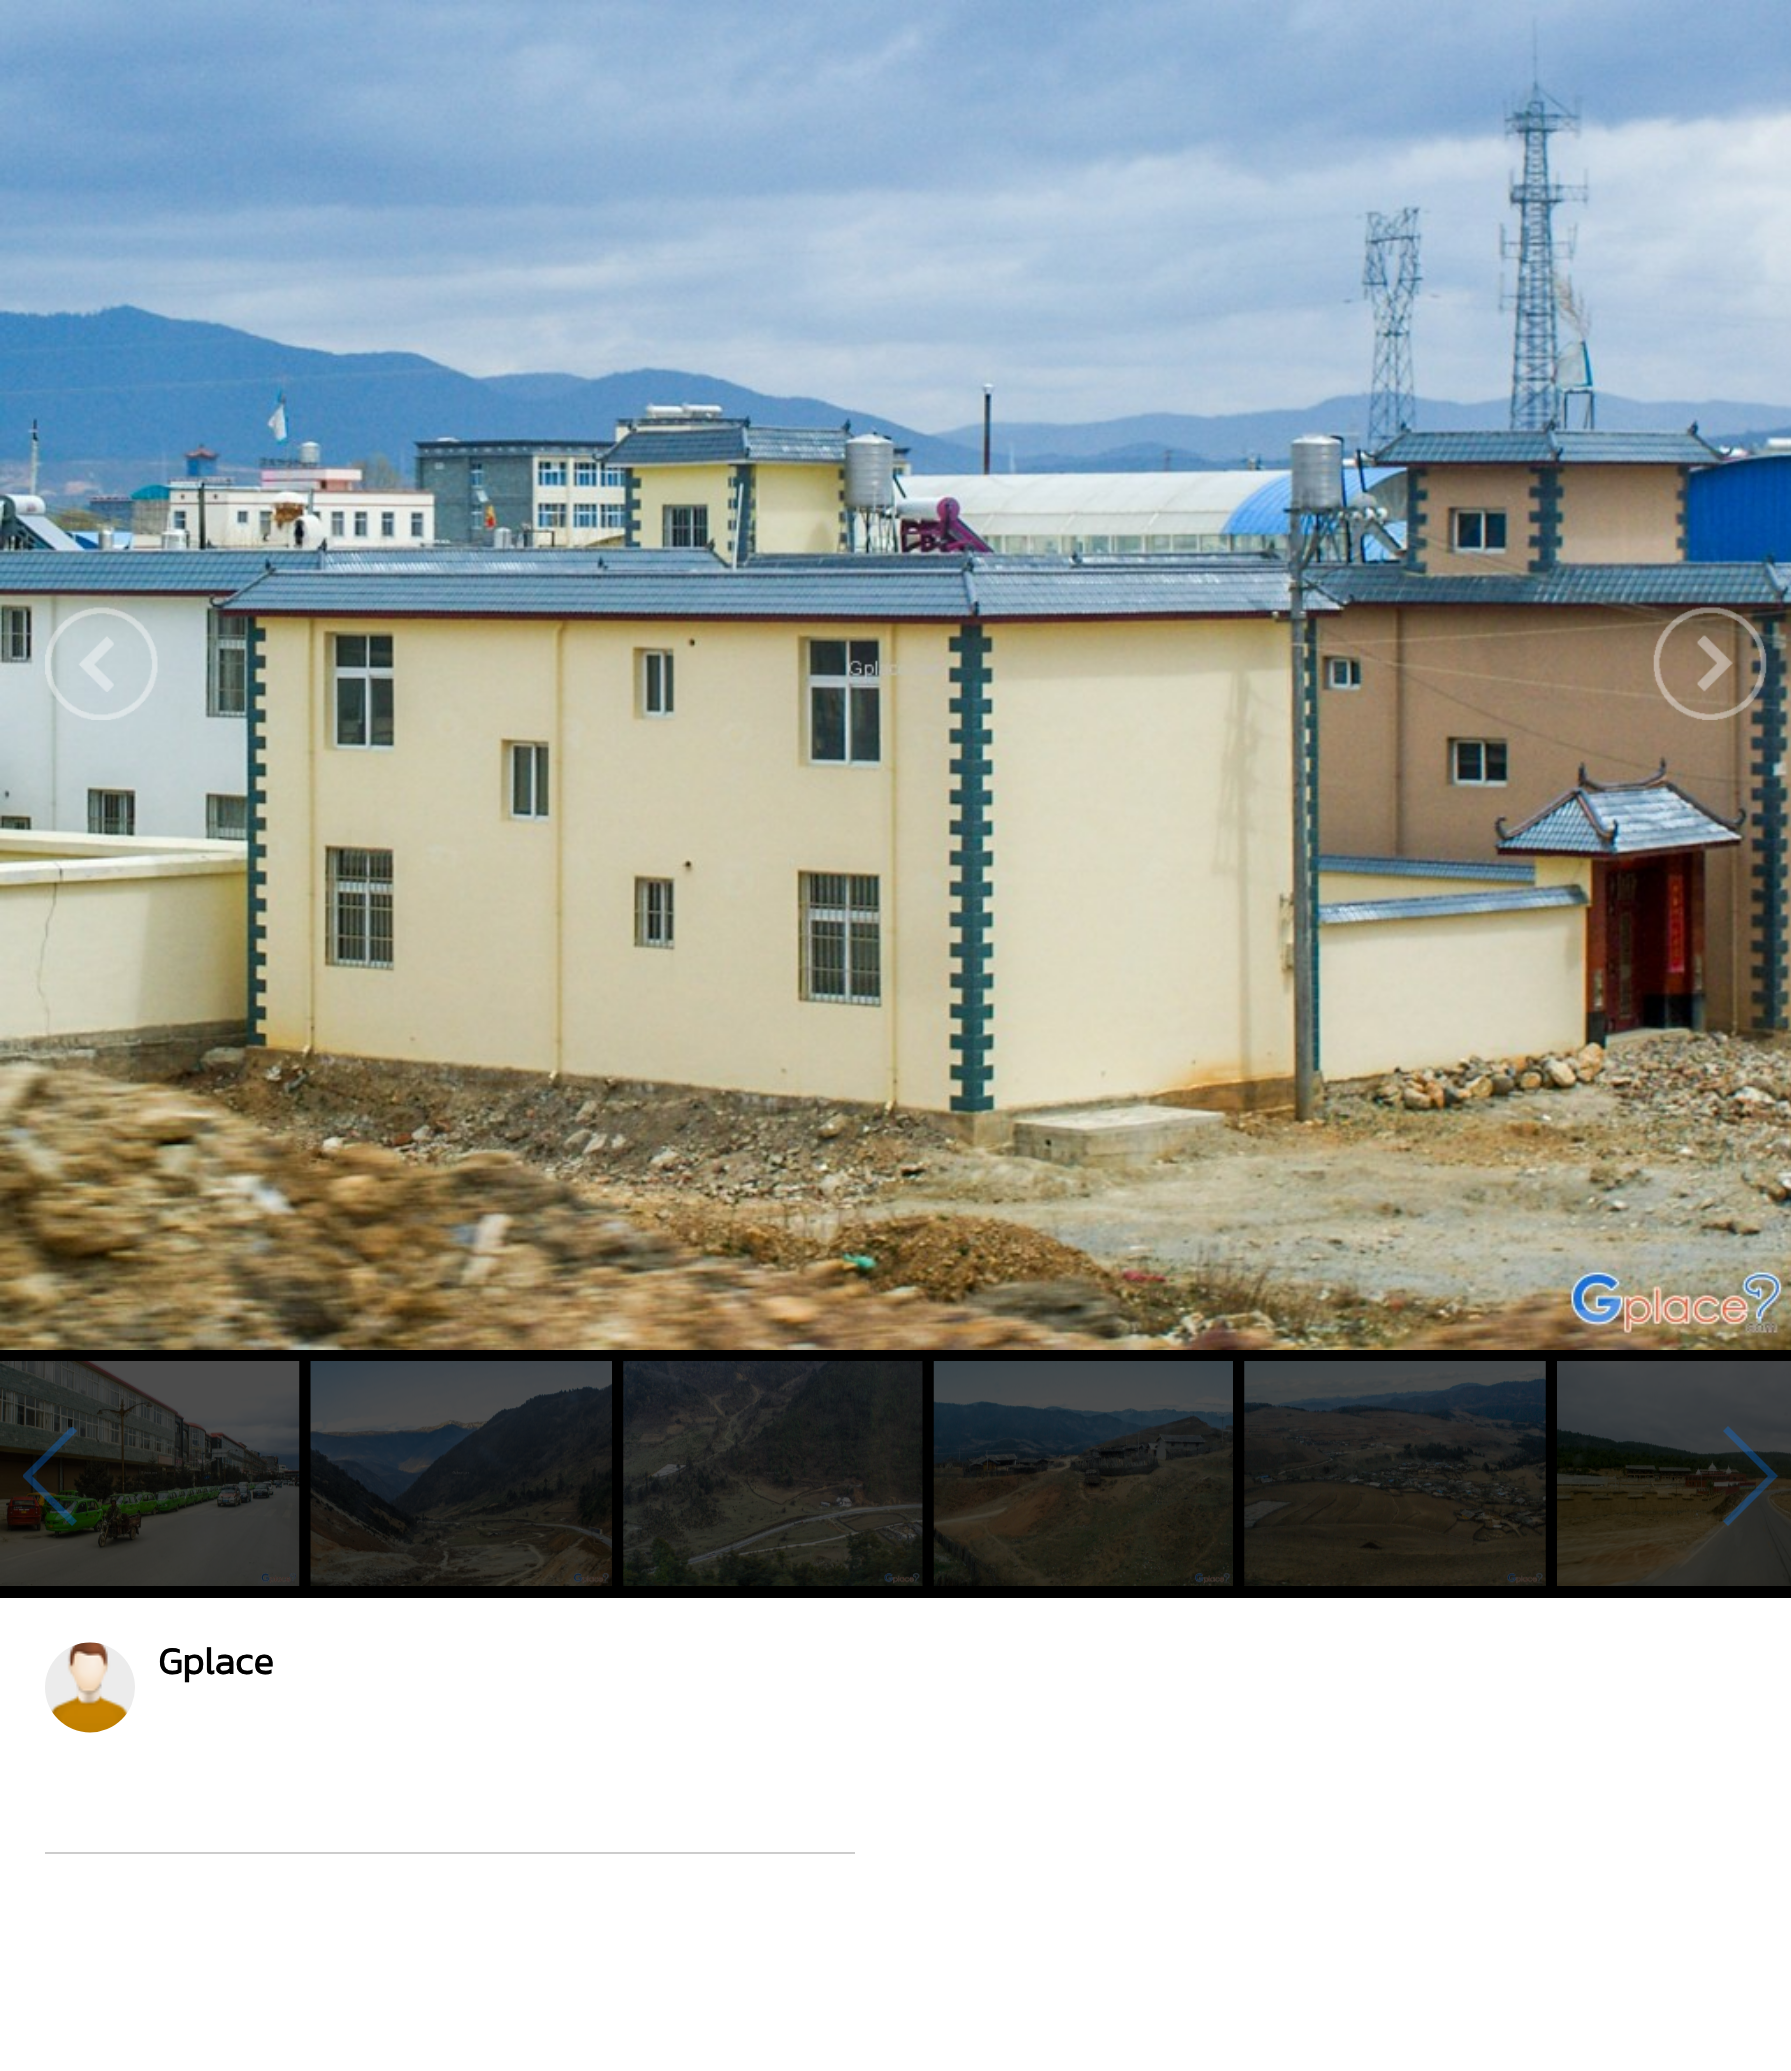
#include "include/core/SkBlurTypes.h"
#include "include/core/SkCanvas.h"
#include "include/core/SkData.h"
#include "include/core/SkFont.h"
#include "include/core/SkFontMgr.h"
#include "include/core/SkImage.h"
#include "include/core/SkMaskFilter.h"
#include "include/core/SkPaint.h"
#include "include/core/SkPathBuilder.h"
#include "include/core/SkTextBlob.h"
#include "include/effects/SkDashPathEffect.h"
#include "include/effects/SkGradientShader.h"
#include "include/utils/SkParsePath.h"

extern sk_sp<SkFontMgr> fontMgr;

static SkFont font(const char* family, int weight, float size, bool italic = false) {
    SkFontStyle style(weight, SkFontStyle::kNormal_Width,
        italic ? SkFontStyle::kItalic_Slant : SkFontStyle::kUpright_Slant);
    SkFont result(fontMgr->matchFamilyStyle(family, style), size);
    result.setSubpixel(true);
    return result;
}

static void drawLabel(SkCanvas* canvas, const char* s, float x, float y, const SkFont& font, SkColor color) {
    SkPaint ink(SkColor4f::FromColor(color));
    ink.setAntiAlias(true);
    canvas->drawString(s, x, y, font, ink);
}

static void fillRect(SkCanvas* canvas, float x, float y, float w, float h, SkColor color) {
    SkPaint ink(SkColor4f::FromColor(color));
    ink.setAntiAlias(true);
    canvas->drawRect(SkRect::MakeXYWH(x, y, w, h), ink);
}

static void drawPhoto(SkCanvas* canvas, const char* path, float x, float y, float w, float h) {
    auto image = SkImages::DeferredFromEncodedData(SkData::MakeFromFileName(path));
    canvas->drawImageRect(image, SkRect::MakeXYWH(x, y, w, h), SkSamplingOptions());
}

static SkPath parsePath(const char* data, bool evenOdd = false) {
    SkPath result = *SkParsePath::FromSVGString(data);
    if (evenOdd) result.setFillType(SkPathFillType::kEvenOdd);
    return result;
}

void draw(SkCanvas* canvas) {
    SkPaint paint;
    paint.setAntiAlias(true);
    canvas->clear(0xFFFFFFFF);
    fillRect(canvas, 0, 1350, 1791, 248, 0xFF000000);
    drawPhoto(canvas, "assets/img1.png", 0, 0, 1791, 1350);
    drawPhoto(canvas, "assets/img2.png", 45, 607, 113, 113);
    drawPhoto(canvas, "assets/img3.png", 1653, 607, 114, 113);
    drawPhoto(canvas, "assets/img4.png", 0, 1361, 300, 225);
    drawPhoto(canvas, "assets/img5.png", 310, 1361, 302, 225);
    drawPhoto(canvas, "assets/img6.png", 623, 1361, 300, 225);
    drawPhoto(canvas, "assets/img7.png", 933, 1361, 300, 225);
    drawPhoto(canvas, "assets/img8.png", 1244, 1361, 302, 225);
    drawPhoto(canvas, "assets/img9.png", 1557, 1361, 234, 225);
    canvas->save();
    canvas->clipRect(SkRect::MakeXYWH(23, 1427, 60, 99));
    paint.setColor(0x4D007AFF);
    canvas->drawPath(parsePath("M22 1476L72 1426L77 1431L32 1476L77 1521L72 1526Z"), paint);
    canvas->restore();
    canvas->drawPath(parsePath("M1778 1476L1728 1526L1723 1521L1768 1476L1723 1431L1728 1426Z"), paint);
    drawPhoto(canvas, "assets/img10.png", 45, 1642, 90, 91);
    SkFont font1 = font("Kanit", 700, 38);
    drawLabel(canvas, "Gplace", 158, 1674, font1, 0xFF000000);
    fillRect(canvas, 45, 1852, 810, 2, 0xFFCCCCCC);
}
